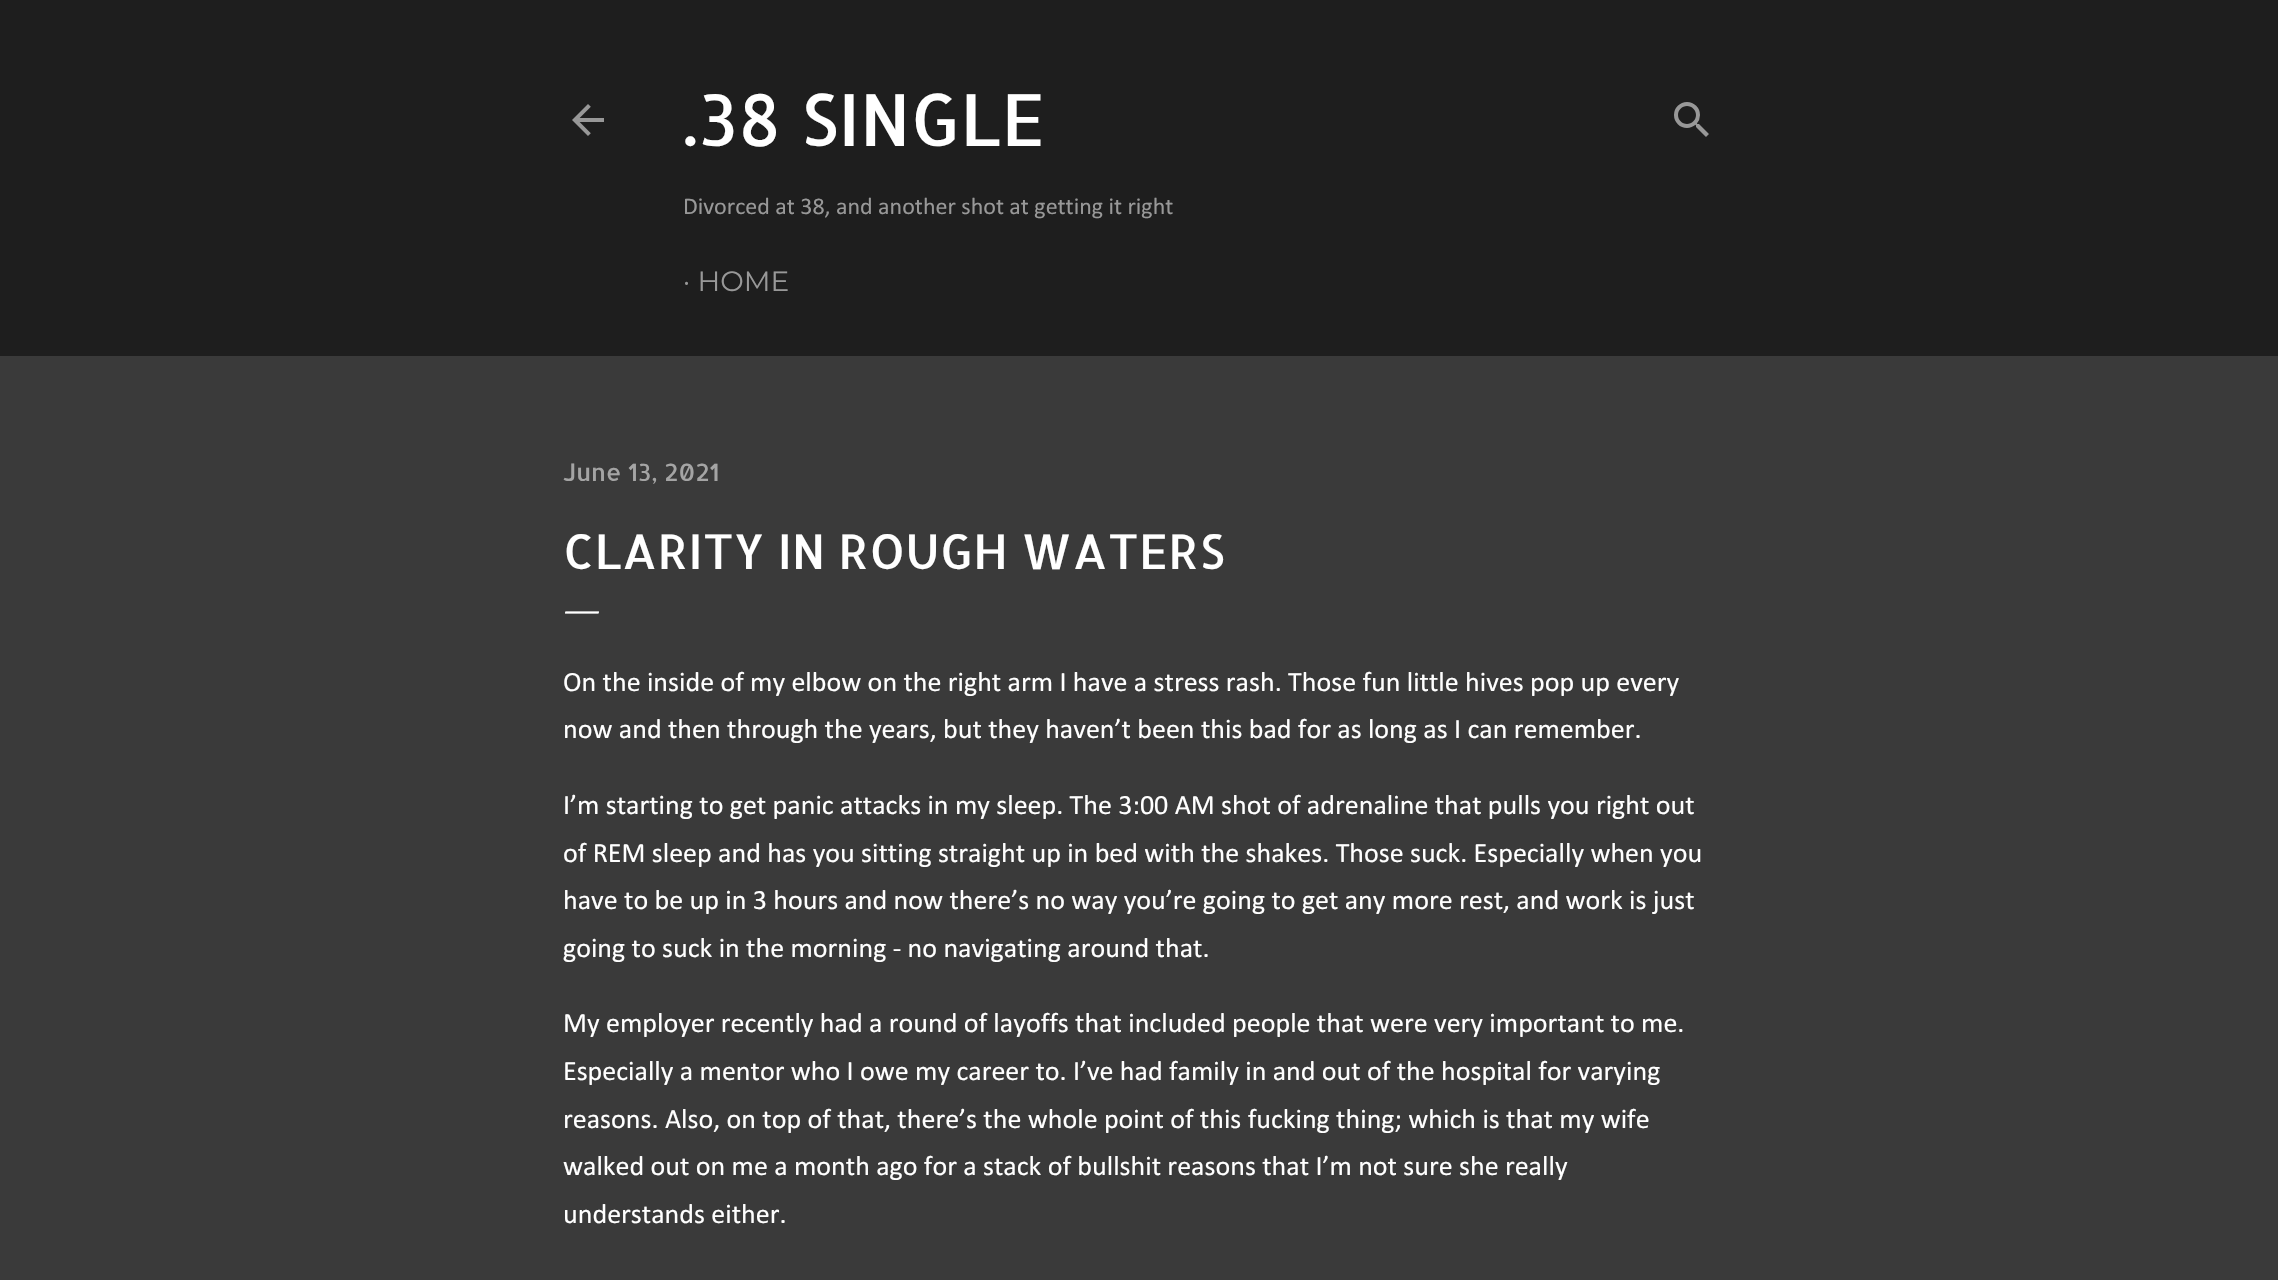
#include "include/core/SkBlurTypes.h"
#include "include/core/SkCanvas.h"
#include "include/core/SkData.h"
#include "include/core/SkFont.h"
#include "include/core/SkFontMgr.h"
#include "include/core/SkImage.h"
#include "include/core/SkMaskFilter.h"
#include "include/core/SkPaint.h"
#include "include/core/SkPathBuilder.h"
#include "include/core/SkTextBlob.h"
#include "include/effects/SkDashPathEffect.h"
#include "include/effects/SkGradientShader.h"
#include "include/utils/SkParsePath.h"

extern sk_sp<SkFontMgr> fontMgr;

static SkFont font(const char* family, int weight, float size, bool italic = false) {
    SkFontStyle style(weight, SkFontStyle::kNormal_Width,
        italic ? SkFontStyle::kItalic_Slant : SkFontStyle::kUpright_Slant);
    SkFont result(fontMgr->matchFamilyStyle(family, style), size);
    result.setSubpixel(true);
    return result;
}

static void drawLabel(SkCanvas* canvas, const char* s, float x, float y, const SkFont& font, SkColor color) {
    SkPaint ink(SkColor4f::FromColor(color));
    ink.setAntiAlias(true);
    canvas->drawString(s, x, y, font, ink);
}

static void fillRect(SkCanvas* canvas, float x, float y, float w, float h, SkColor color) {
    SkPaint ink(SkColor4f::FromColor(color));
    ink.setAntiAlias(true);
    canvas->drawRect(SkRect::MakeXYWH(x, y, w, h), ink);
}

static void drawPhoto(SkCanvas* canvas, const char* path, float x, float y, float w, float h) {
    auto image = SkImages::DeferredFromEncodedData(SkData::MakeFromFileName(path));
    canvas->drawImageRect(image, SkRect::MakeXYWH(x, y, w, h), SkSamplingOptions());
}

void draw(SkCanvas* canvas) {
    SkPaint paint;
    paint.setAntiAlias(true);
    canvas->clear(0xFF3A3A3A);
    fillRect(canvas, 0, 0, 2278, 356, 0xFF1E1E1E);
    drawPhoto(canvas, "assets/img1.png", 572, 104, 32, 32);
    SkFont font1 = font("Allerta", 400, 72);
    drawLabel(canvas, ".38 SINGLE", 683, 146, font1, 0xFFFFFFFF);
    SkFont font2 = font("Calibri", 400, 24);
    drawLabel(canvas, "Divorced at 38, and another shot at getting it right", 683, 214, font2, 0xFF989898);
    SkFont font3 = font("Montserrat", 400, 28);
    drawLabel(canvas, "· HOME", 683, 291, font3, 0xFF989898);
    drawPhoto(canvas, "assets/img2.png", 1674, 102, 35, 35);
    SkFont font4 = font("Allerta", 400, 24);
    drawLabel(canvas, "June 13, 2021", 563, 481, font4, 0xFFA4A4A4);
    SkFont font5 = font("Allerta", 400, 48);
    drawLabel(canvas, "CLARITY IN ROUGH WATERS", 563, 569, font5, 0xFFFFFFFF);
    SkFont font6 = font("EB Garamond", 400, 40);
    drawLabel(canvas, "—", 563, 621, font6, 0xFFFFFFFF);
    SkFont font7 = font("Calibri", 400, 28);
    drawLabel(canvas, "On the inside of my elbow on the right arm I have a stress rash. Those fun little hives pop up every", 563, 691, font7, 0xFFFFFFFF);
    drawLabel(canvas, "now and then through the years, but they haven’t been this bad for as long as I can remember.", 563, 738, font7, 0xFFFFFFFF);
    drawLabel(canvas, "I’m starting to get panic attacks in my sleep. The 3:00 AM shot of adrenaline that pulls you right out", 563, 814, font7, 0xFFFFFFFF);
    drawLabel(canvas, "of REM sleep and has you sitting straight up in bed with the shakes. Those suck. Especially when you", 563, 862, font7, 0xFFFFFFFF);
    drawLabel(canvas, "have to be up in 3 hours and now there’s no way you’re going to get any more rest, and work is just", 563, 909, font7, 0xFFFFFFFF);
    drawLabel(canvas, "going to suck in the morning - no navigating around that.", 563, 957, font7, 0xFFFFFFFF);
    drawLabel(canvas, "My employer recently had a round of layoffs that included people that were very important to me.", 563, 1032, font7, 0xFFFFFFFF);
    drawLabel(canvas, "Especially a mentor who I owe my career to. I’ve had family in and out of the hospital for varying", 563, 1080, font7, 0xFFFFFFFF);
    drawLabel(canvas, "reasons. Also, on top of that, there’s the whole point of this fucking thing; which is that my wife", 563, 1128, font7, 0xFFFFFFFF);
    drawLabel(canvas, "walked out on me a month ago for a stack of bullshit reasons that I’m not sure she really", 563, 1175, font7, 0xFFFFFFFF);
    drawLabel(canvas, "understands either.", 563, 1223, font7, 0xFFFFFFFF);
}
